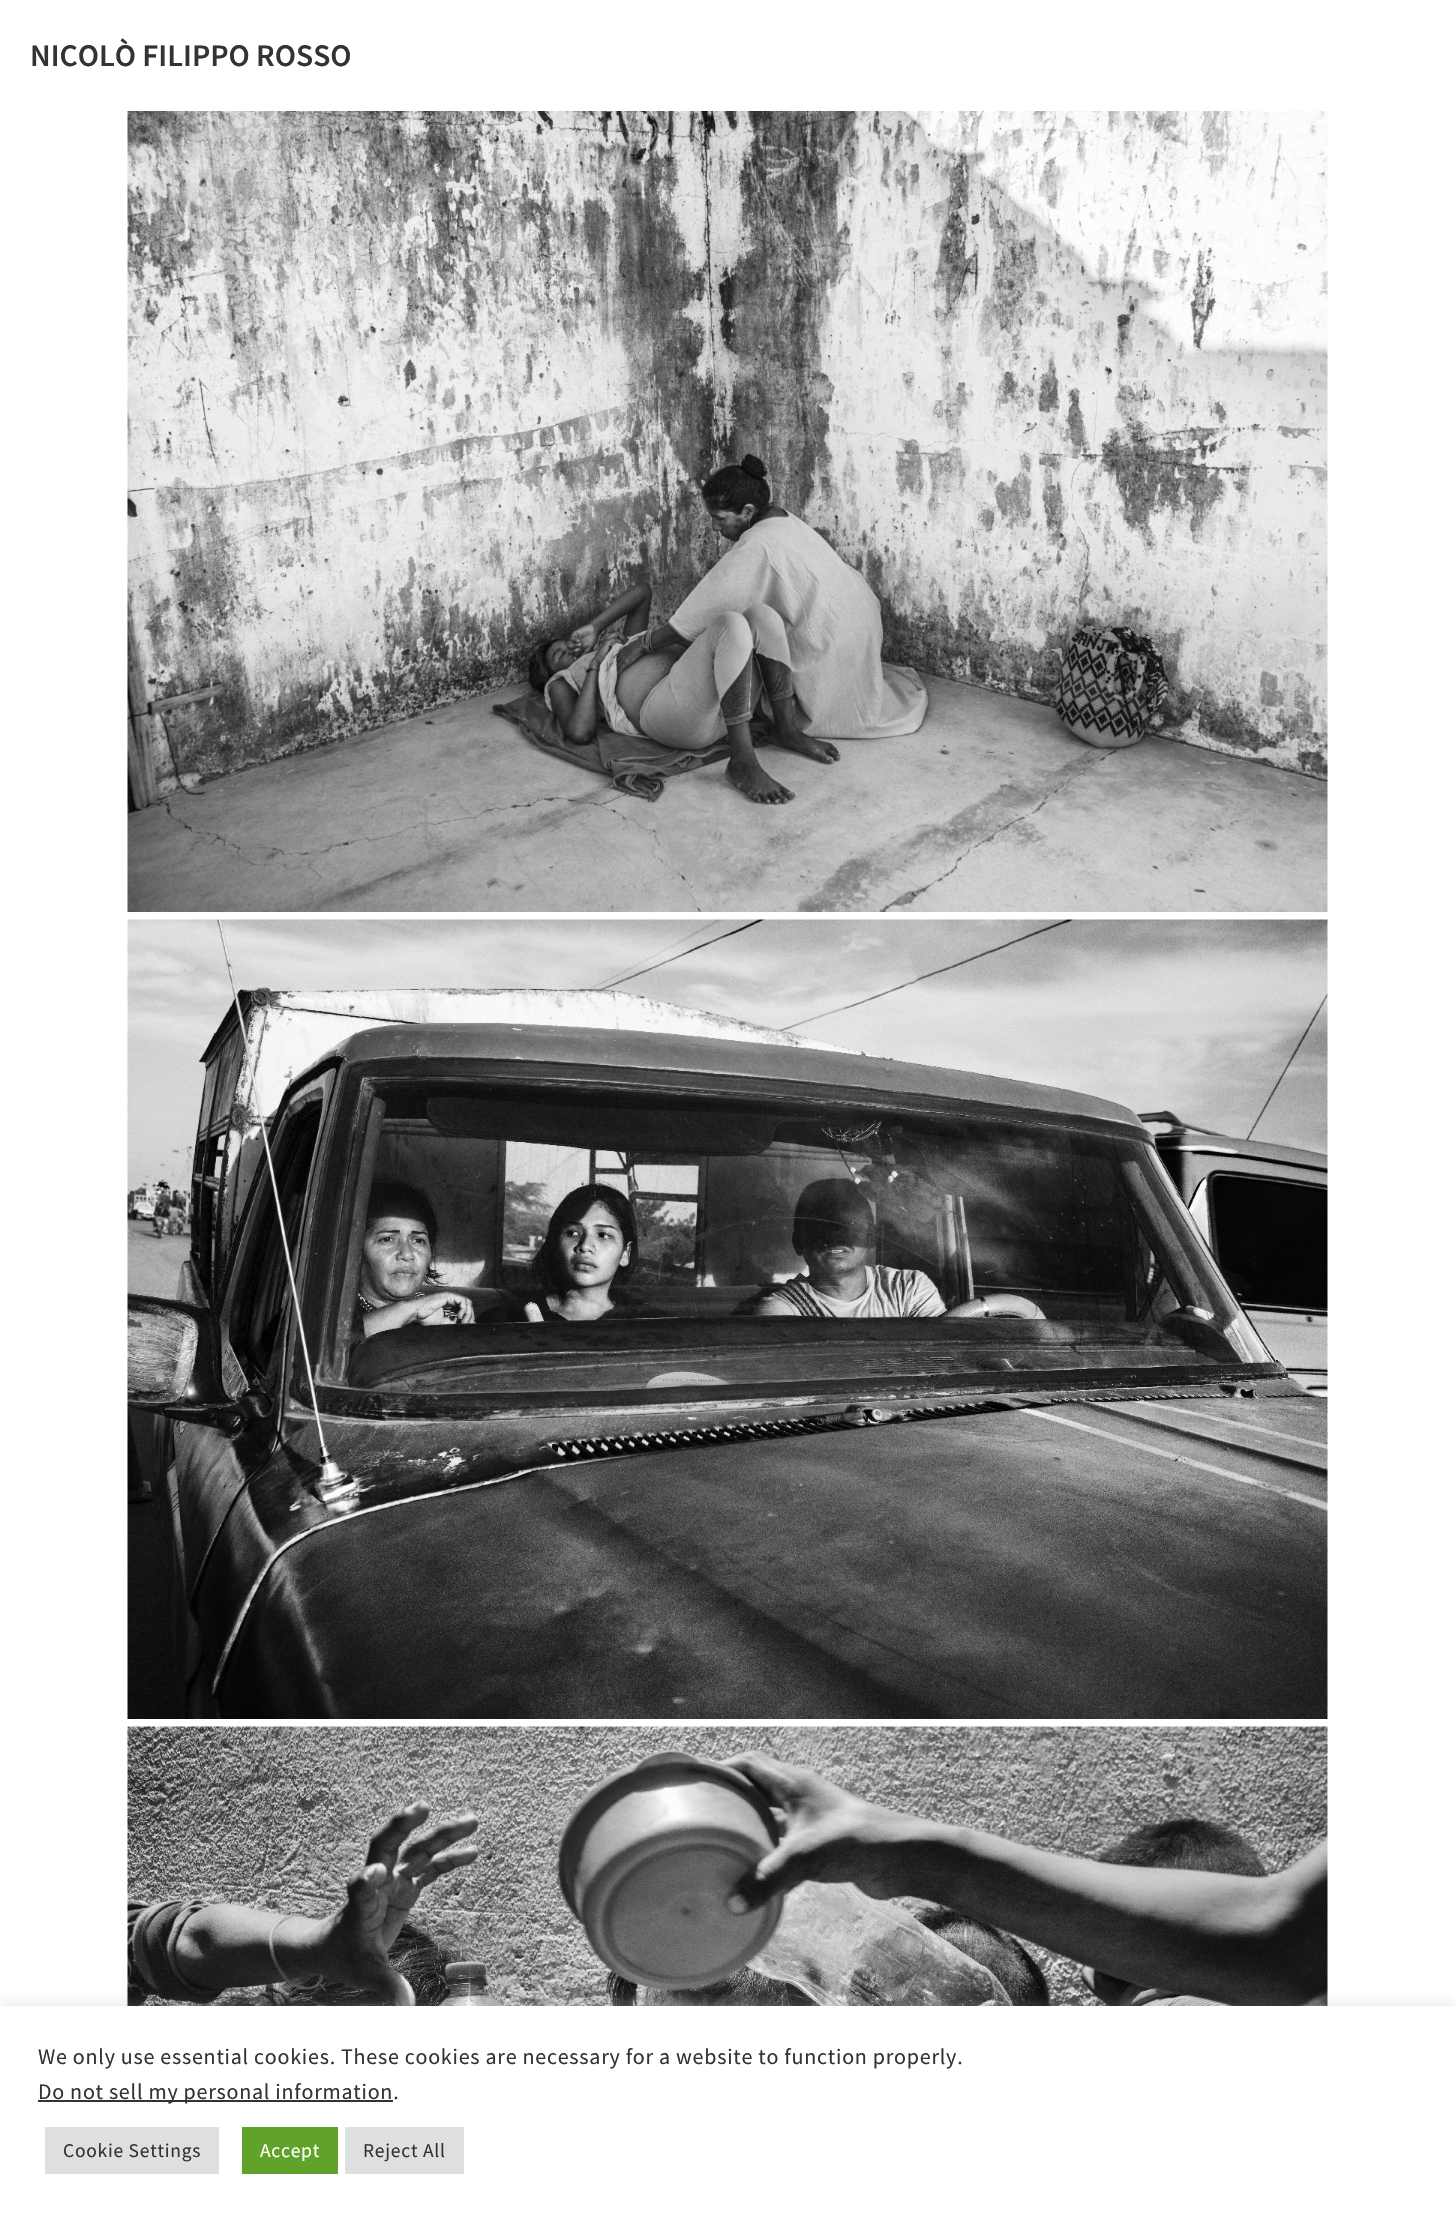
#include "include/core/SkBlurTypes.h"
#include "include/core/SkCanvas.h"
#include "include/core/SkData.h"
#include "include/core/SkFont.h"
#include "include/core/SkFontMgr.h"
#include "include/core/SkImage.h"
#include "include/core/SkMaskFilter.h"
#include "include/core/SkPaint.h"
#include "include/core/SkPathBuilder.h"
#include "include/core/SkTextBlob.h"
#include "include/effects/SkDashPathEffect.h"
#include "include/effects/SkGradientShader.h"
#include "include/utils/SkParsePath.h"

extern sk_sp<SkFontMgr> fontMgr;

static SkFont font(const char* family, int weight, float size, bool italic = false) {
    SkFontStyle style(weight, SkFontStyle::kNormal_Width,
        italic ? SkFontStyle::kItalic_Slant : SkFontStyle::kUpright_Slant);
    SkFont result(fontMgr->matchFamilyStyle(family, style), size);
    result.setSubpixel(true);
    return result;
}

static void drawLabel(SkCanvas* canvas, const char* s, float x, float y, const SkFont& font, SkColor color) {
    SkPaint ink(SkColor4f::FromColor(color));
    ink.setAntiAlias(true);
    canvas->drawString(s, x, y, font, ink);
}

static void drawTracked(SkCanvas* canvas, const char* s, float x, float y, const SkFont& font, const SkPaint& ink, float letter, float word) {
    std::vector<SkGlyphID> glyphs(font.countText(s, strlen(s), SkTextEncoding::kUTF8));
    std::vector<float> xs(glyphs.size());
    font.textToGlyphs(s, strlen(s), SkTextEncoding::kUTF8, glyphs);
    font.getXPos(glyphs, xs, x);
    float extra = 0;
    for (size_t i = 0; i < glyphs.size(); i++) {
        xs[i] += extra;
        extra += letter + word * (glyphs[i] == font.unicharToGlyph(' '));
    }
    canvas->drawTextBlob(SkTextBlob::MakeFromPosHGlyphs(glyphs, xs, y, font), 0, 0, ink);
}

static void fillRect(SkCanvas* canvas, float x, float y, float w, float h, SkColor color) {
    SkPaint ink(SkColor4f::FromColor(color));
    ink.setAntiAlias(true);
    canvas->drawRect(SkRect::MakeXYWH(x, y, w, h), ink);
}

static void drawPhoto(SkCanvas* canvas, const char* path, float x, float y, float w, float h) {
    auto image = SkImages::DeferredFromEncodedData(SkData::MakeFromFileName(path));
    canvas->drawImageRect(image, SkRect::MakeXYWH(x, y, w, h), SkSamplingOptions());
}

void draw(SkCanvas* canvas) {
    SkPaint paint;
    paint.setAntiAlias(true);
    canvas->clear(0xFFFFFFFF);
    SkFont font1 = font("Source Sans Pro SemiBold", 600, 31.5f);
    drawLabel(canvas, "NICOLÒ FILIPPO ROSSO", 30, 66, font1, 0xFF333333);
    drawPhoto(canvas, "assets/img1.png", 127, 111, 1201, 801);
    drawPhoto(canvas, "assets/img2.png", 127, 919, 1201, 800);
    drawPhoto(canvas, "assets/img3.png", 127, 1726, 1201, 280);
    paint.setColor(0x4DACABAB);
    paint.setMaskFilter(SkMaskFilter::MakeBlur(kNormal_SkBlurStyle, 7.5f));
    canvas->drawRect(SkRect::MakeXYWH(0, 2004, 1455, 213), paint);
    paint.setMaskFilter(nullptr);
    fillRect(canvas, 0, 2006, 1455, 212, 0xFFFFFFFF);
    SkFont font2 = font("Source Sans Pro", 400, 22);
    paint.setColor(0xFF333333);
    drawTracked(canvas, "We only use essential cookies. These cookies are necessary for a website to function properly.", 38, 2064, font2, paint, 0.75f, 0);
    fillRect(canvas, 38, 2100, 355, 2, 0xFF333333);
    drawTracked(canvas, "Do not sell my personal information.", 38, 2099, font2, paint, 0.75f, 0);
    fillRect(canvas, 45, 2127, 174, 47, 0xFFDEDFE0);
    SkFont font3 = font("Source Sans Pro", 400, 19.5f);
    drawTracked(canvas, "Cookie Settings", 63, 2157, font3, paint, 0.75f, 0);
    fillRect(canvas, 242, 2127, 96, 47, 0xFF61A229);
    paint.setColor(0xFFFFFFFF);
    drawTracked(canvas, "Accept", 260, 2157, font3, paint, 0.75f, 0);
    fillRect(canvas, 345, 2127, 119, 47, 0xFFDEDFE0);
    paint.setColor(0xFF333333);
    drawTracked(canvas, "Reject All", 363, 2157, font3, paint, 0.75f, 0);
}
